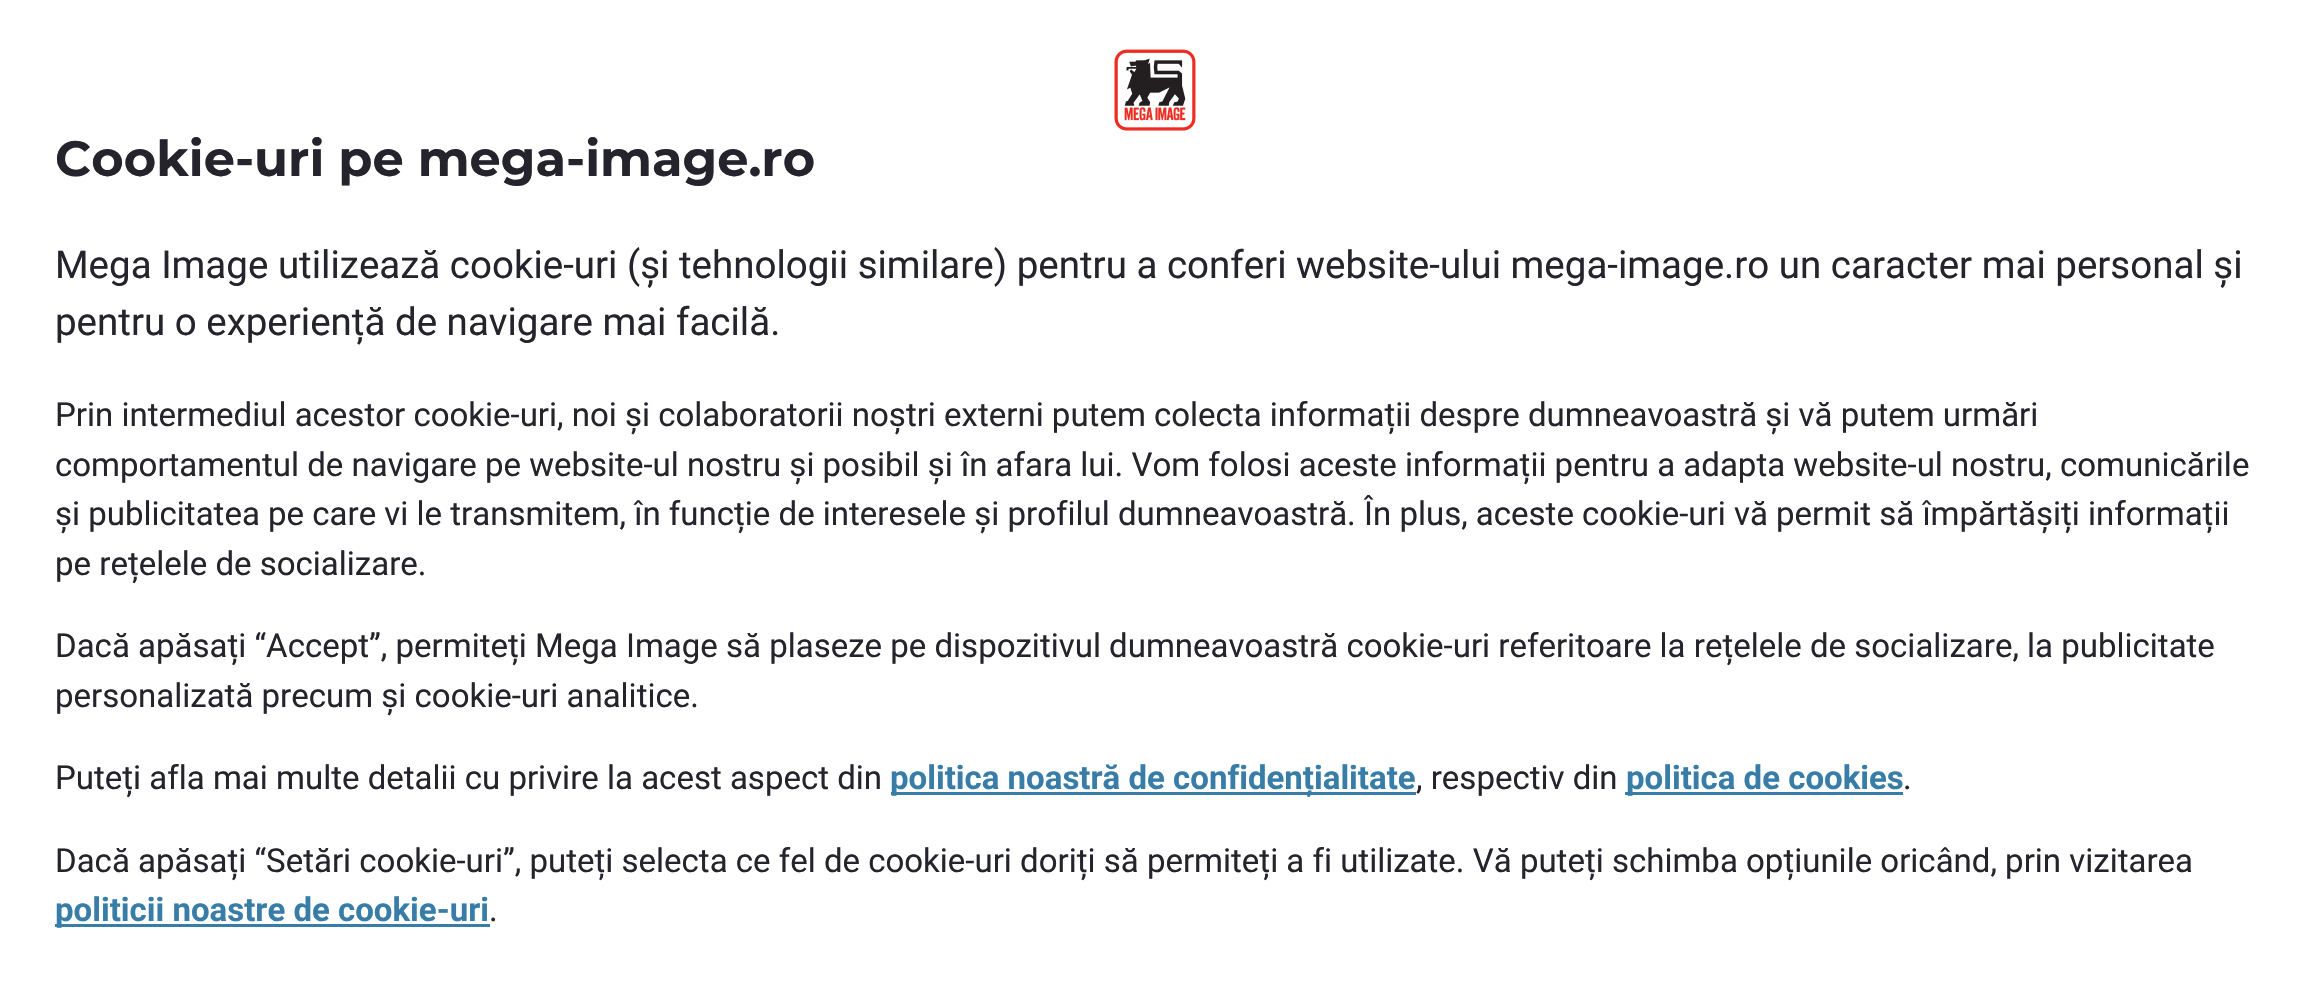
#include "include/core/SkBlurTypes.h"
#include "include/core/SkCanvas.h"
#include "include/core/SkData.h"
#include "include/core/SkFont.h"
#include "include/core/SkFontMgr.h"
#include "include/core/SkImage.h"
#include "include/core/SkMaskFilter.h"
#include "include/core/SkPaint.h"
#include "include/core/SkPathBuilder.h"
#include "include/core/SkTextBlob.h"
#include "include/effects/SkDashPathEffect.h"
#include "include/effects/SkGradientShader.h"
#include "include/utils/SkParsePath.h"

extern sk_sp<SkFontMgr> fontMgr;

static SkFont font(const char* family, int weight, float size, bool italic = false) {
    SkFontStyle style(weight, SkFontStyle::kNormal_Width,
        italic ? SkFontStyle::kItalic_Slant : SkFontStyle::kUpright_Slant);
    SkFont result(fontMgr->matchFamilyStyle(family, style), size);
    result.setSubpixel(true);
    return result;
}

static void drawLabel(SkCanvas* canvas, const char* s, float x, float y, const SkFont& font, SkColor color) {
    SkPaint ink(SkColor4f::FromColor(color));
    ink.setAntiAlias(true);
    canvas->drawString(s, x, y, font, ink);
}

static void fillRect(SkCanvas* canvas, float x, float y, float w, float h, SkColor color) {
    SkPaint ink(SkColor4f::FromColor(color));
    ink.setAntiAlias(true);
    canvas->drawRect(SkRect::MakeXYWH(x, y, w, h), ink);
}

static void drawPhoto(SkCanvas* canvas, const char* path, float x, float y, float w, float h) {
    auto image = SkImages::DeferredFromEncodedData(SkData::MakeFromFileName(path));
    canvas->drawImageRect(image, SkRect::MakeXYWH(x, y, w, h), SkSamplingOptions());
}

void draw(SkCanvas* canvas) {
    SkPaint paint;
    paint.setAntiAlias(true);
    canvas->clear(0xFFFFFFFF);
    drawPhoto(canvas, "assets/img1.png", 1114, 49, 82, 82);
    SkFont font1 = font("Montserrat", 100, 49.5f);
    drawLabel(canvas, "Cookie-uri pe mega-image.ro", 55, 176, font1, 0xFF25232C);
    SkFont font2 = font("Roboto", 400, 38.5f);
    drawLabel(canvas, "Mega Image utilizează cookie-uri (și tehnologii similare) pentru a conferi website-ului mega-image.ro un caracter mai personal și", 55, 278, font2, 0xFF25232C);
    drawLabel(canvas, "pentru o experiență de navigare mai facilă.", 55, 335, font2, 0xFF25232C);
    SkFont font3 = font("Roboto", 400, 33);
    drawLabel(canvas, "Prin intermediul acestor cookie-uri, noi și colaboratorii noștri externi putem colecta informații despre dumneavoastră și vă putem urmări", 55, 426, font3, 0xFF25232C);
    drawLabel(canvas, "comportamentul de navigare pe website-ul nostru și posibil și în afara lui. Vom folosi aceste informații pentru a adapta website-ul nostru, comunicările", 55, 476, font3, 0xFF25232C);
    drawLabel(canvas, "și publicitatea pe care vi le transmitem, în funcție de interesele și profilul dumneavoastră. În plus, aceste cookie-uri vă permit să împărtășiți informații", 55, 525, font3, 0xFF25232C);
    drawLabel(canvas, "pe rețelele de socializare.", 55, 575, font3, 0xFF25232C);
    drawLabel(canvas, "Dacă apăsați “Accept”, permiteți Mega Image să plaseze pe dispozitivul dumneavoastră cookie-uri referitoare la rețelele de socializare, la publicitate", 55, 657, font3, 0xFF25232C);
    drawLabel(canvas, "personalizată precum și cookie-uri analitice.", 55, 707, font3, 0xFF25232C);
    drawLabel(canvas, "Puteți afla mai multe detalii cu privire la acest aspect din", 55, 789, font3, 0xFF25232C);
    fillRect(canvas, 891, 792, 525, 3, 0xFF377DA8);
    SkFont font4 = font("Roboto", 700, 33);
    drawLabel(canvas, "politica noastră de confidențialitate", 890, 789, font4, 0xFF377DA8);
    drawLabel(canvas, ", respectiv din", 1416, 789, font3, 0xFF25232C);
    fillRect(canvas, 1625, 792, 278, 3, 0xFF377DA8);
    drawLabel(canvas, "politica de cookies", 1626, 789, font4, 0xFF377DA8);
    drawLabel(canvas, ".", 1903, 789, font3, 0xFF25232C);
    drawLabel(canvas, "Dacă apăsați “Setări cookie-uri”, puteți selecta ce fel de cookie-uri doriți să permiteți a fi utilizate. Vă puteți schimba opțiunile oricând, prin vizitarea", 55, 872, font3, 0xFF25232C);
    fillRect(canvas, 55, 924, 435, 3, 0xFF377DA8);
    drawLabel(canvas, "politicii noastre de cookie-uri", 55, 921, font4, 0xFF377DA8);
    drawLabel(canvas, ".", 489, 921, font3, 0xFF25232C);
}
